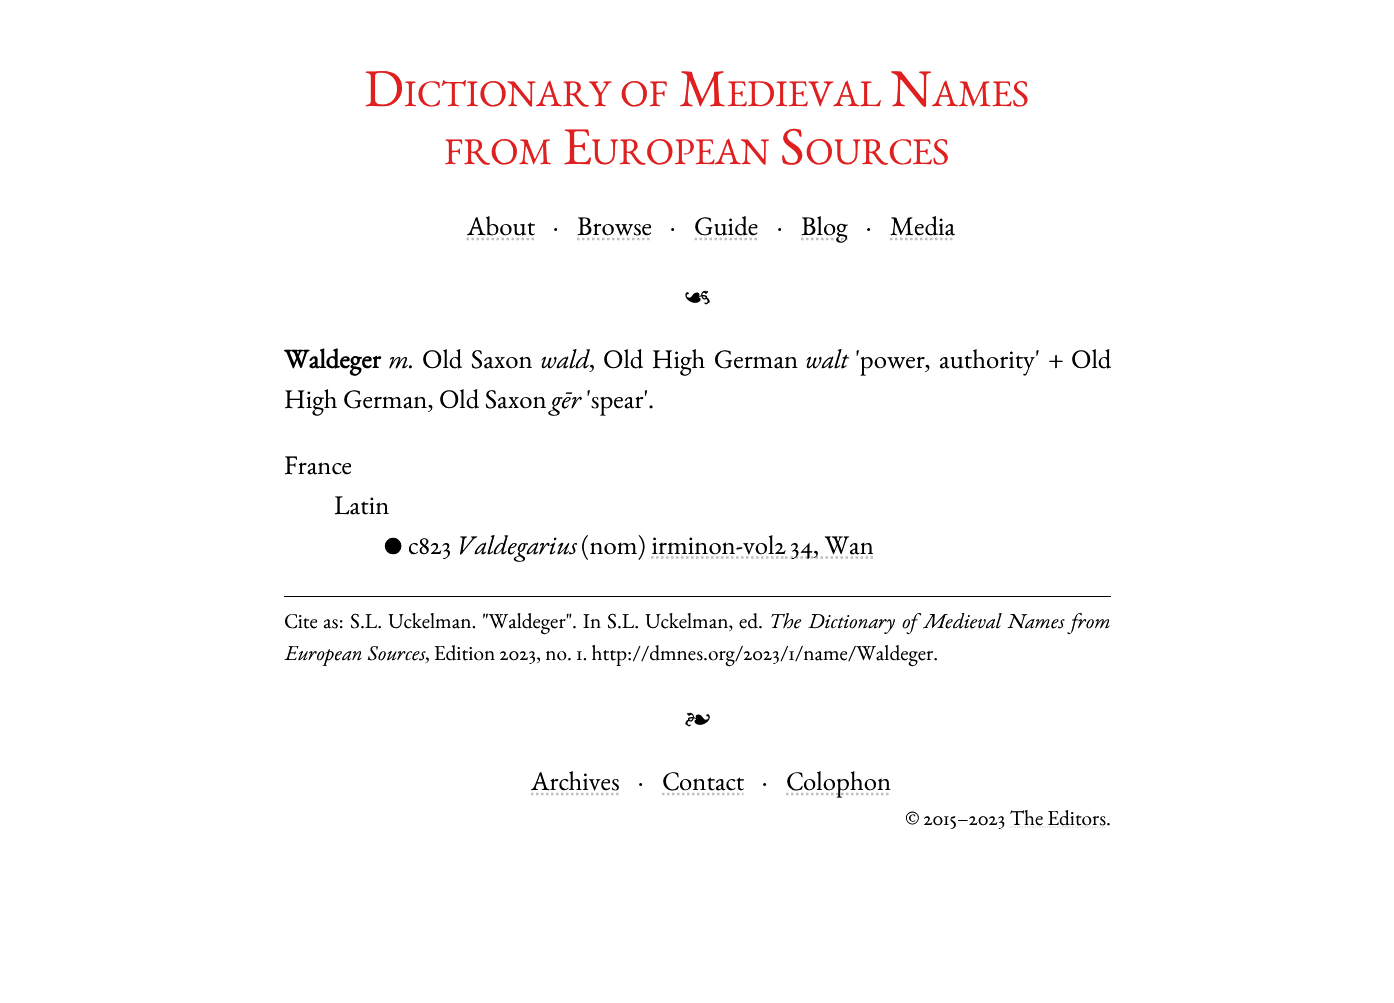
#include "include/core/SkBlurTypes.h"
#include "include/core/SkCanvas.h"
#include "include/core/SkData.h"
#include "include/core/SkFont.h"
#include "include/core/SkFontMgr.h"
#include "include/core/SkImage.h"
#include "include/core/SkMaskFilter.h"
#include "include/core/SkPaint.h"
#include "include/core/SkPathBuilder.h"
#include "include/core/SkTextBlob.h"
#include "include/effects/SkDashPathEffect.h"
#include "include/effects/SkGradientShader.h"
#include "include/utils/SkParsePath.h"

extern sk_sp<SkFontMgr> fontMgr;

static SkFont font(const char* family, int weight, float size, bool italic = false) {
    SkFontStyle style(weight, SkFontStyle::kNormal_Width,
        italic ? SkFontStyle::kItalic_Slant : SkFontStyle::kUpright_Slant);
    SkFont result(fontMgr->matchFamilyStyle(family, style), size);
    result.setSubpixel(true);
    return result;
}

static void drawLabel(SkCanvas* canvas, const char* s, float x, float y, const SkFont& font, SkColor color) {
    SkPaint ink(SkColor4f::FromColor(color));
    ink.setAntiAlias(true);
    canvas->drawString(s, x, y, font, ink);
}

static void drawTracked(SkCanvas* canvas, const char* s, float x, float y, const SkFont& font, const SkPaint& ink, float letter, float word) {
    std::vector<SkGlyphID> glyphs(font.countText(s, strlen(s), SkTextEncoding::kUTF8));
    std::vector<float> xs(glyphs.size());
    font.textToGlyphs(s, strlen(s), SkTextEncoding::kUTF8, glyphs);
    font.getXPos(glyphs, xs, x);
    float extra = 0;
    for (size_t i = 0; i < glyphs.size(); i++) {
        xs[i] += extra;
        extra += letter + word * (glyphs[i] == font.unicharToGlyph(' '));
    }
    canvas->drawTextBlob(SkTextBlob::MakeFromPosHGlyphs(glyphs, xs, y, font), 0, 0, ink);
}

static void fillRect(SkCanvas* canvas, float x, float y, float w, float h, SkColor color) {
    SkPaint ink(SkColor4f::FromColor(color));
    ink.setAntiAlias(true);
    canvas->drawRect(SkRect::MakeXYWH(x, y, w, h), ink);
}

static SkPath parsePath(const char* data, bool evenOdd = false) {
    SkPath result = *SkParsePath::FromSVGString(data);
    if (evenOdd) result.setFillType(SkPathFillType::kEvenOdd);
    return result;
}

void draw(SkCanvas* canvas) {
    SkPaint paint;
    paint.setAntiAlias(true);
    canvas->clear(0xFFFFFFFF);
    SkFont font1 = font("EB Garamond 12", 400, 53);
    drawLabel(canvas, "D", 364, 106, font1, 0xFFDF2020);
    SkFont font2 = font("EB Garamond 12", 400, 37.5f);
    drawLabel(canvas, "ICTIONARY", 404, 106, font2, 0xFFDF2020);
    drawLabel(canvas, "OF", 620, 106, font2, 0xFFDF2020);
    drawLabel(canvas, "M", 679, 106, font1, 0xFFDF2020);
    drawLabel(canvas, "EDIEVAL", 727, 106, font2, 0xFFDF2020);
    drawLabel(canvas, "N", 891, 106, font1, 0xFFDF2020);
    drawLabel(canvas, "AMES", 932, 106, font2, 0xFFDF2020);
    drawLabel(canvas, "FROM", 444, 164, font2, 0xFFDF2020);
    drawLabel(canvas, "E", 563, 164, font1, 0xFFDF2020);
    drawLabel(canvas, "UROPEAN", 591, 164, font2, 0xFFDF2020);
    drawLabel(canvas, "S", 780, 164, font1, 0xFFDF2020);
    drawLabel(canvas, "OURCES", 805, 164, font2, 0xFFDF2020);
    SkFont font3 = font("EB Garamond 12", 400, 26.75f);
    drawLabel(canvas, "About", 467, 235, font3, 0xFF000000);
    paint.setStroke(true);
    paint.setStrokeWidth(2.5f);
    paint.setColor(0xFFC0C0C0);
    paint.setPathEffect(SkDashPathEffect::Make({{2.5f, 2.5f}}, 0));
    canvas->drawPath(parsePath("M466.5 239H534.5"), paint);
    paint.setPathEffect(nullptr);
    drawLabel(canvas, "·", 553, 235, font3, 0xFF000000);
    drawLabel(canvas, "Browse", 577, 235, font3, 0xFF000000);
    paint.setPathEffect(SkDashPathEffect::Make({{2.5f, 2.5f}}, 0));
    canvas->drawPath(parsePath("M577 239H651.5"), paint);
    paint.setPathEffect(nullptr);
    drawLabel(canvas, "·", 670, 235, font3, 0xFF000000);
    drawLabel(canvas, "Guide", 694, 235, font3, 0xFF000000);
    paint.setPathEffect(SkDashPathEffect::Make({{2.5f, 2.5f}}, 0));
    canvas->drawPath(parsePath("M694.5 239H758"), paint);
    paint.setPathEffect(nullptr);
    drawLabel(canvas, "·", 777, 235, font3, 0xFF000000);
    paint.setPathEffect(SkDashPathEffect::Make({{2.5f, 2.5f}}, 0));
    canvas->drawPath(parsePath("M801 239H847.5"), paint);
    paint.setPathEffect(nullptr);
    drawLabel(canvas, "Blog", 801, 235, font3, 0xFF000000);
    drawLabel(canvas, "·", 866, 235, font3, 0xFF000000);
    drawLabel(canvas, "Media", 890, 235, font3, 0xFF000000);
    paint.setPathEffect(SkDashPathEffect::Make({{2.5f, 2.5f}}, 0));
    canvas->drawPath(parsePath("M890 239H955"), paint);
    paint.setPathEffect(nullptr);
    drawLabel(canvas, "☙", 685, 301, font3, 0xFF000000);
    SkFont font4 = font("EB Garamond 12", 700, 26.75f);
    drawLabel(canvas, "Waldeger", 284, 368, font4, 0xFF000000);
    SkFont font5 = font("EB Garamond 12", 400, 26.75f, true);
    drawLabel(canvas, "m.", 388, 368, font5, 0xFF000000);
    paint.setStroke(false);
    paint.setColor(0xFF000000);
    drawTracked(canvas, "Old Saxon", 422, 368, font3, paint, 0, 3);
    drawLabel(canvas, "wald", 540, 368, font5, 0xFF000000);
    drawLabel(canvas, ",", 589, 368, font3, 0xFF000000);
    drawTracked(canvas, "Old High German", 603, 368, font3, paint, 0, 3);
    drawLabel(canvas, "walt", 805, 368, font5, 0xFF000000);
    drawTracked(canvas, "'power, authority' +", 855, 368, font3, paint, 0, 3);
    drawLabel(canvas, "Old", 1071, 368, font3, 0xFF000000);
    drawLabel(canvas, "High German, Old Saxon", 284, 408, font3, 0xFF000000);
    drawLabel(canvas, "gēr", 551, 408, font5, 0xFF000000);
    drawLabel(canvas, "'spear'.", 586, 408, font3, 0xFF000000);
    drawLabel(canvas, "France", 284, 474, font3, 0xFF000000);
    drawLabel(canvas, "Latin", 334, 514, font3, 0xFF000000);
    SkFont font6 = font("FreeSerif", 400, 23);
    drawLabel(canvas, "●", 384, 554, font6, 0xFF000000);
    drawLabel(canvas, "c823", 408, 554, font3, 0xFF000000);
    drawLabel(canvas, "Valdegarius", 457, 554, font5, 0xFF000000);
    drawLabel(canvas, "(nom) irminon-vol2", 581, 554, font3, 0xFF000000);
    paint.setStroke(true);
    paint.setColor(0xFFC0C0C0);
    canvas->drawPath(parsePath("M785 557.5H787.5M790 557.5H790.5"), paint);
    paint.setPathEffect(SkDashPathEffect::Make({{2.5f, 2.5f}}, 0));
    canvas->drawPath(parsePath("M790.5 557.5H874"), paint);
    paint.setPathEffect(nullptr);
    drawLabel(canvas, "34, Wan", 790, 554, font3, 0xFF000000);
    paint.setPathEffect(SkDashPathEffect::Make({{2.5f, 2.5f}}, 0));
    canvas->drawPath(parsePath("M651 557.5H785"), paint);
    paint.setPathEffect(nullptr);
    fillRect(canvas, 284, 596, 827, 1, 0xFF000000);
    SkFont font7 = font("EB Garamond 12", 400, 21.3f);
    paint.setStroke(false);
    paint.setColor(0xFF000000);
    drawTracked(canvas, "Cite as:", 284, 628, font7, paint, 0, 1);
    drawTracked(canvas, "S.L. Uckelman. \"Waldeger\". In S.L. Uckelman, ed.", 350, 628, font7, paint, 0, 1.5f);
    SkFont font8 = font("EB Garamond 12", 400, 21.3f, true);
    drawTracked(canvas, "The Dictionary of Medieval Names from", 769, 628, font8, paint, 0, 1.5f);
    drawLabel(canvas, "European Sources", 284, 660, font8, 0xFF000000);
    drawLabel(canvas, ", Edition 2023, no. 1. http://dmnes.org/2023/1/name/Waldeger.", 425, 660, font7, 0xFF000000);
    drawLabel(canvas, "❧", 685, 723, font3, 0xFF000000);
    drawLabel(canvas, "Archives", 531, 790, font3, 0xFF000000);
    paint.setStroke(true);
    paint.setColor(0xFFC0C0C0);
    paint.setPathEffect(SkDashPathEffect::Make({{2.5f, 2.5f}}, 0));
    canvas->drawPath(parsePath("M531 794H619"), paint);
    paint.setPathEffect(nullptr);
    drawLabel(canvas, "·", 638, 790, font3, 0xFF000000);
    drawLabel(canvas, "Contact", 662, 790, font3, 0xFF000000);
    paint.setPathEffect(SkDashPathEffect::Make({{2.5f, 2.5f}}, 0));
    canvas->drawPath(parsePath("M662 794H743.5"), paint);
    paint.setPathEffect(nullptr);
    drawLabel(canvas, "·", 762, 790, font3, 0xFF000000);
    paint.setPathEffect(SkDashPathEffect::Make({{2.5f, 2.5f}}, 0));
    canvas->drawPath(parsePath("M786 794H891"), paint);
    paint.setPathEffect(nullptr);
    drawLabel(canvas, "Colophon", 786, 790, font3, 0xFF000000);
    drawLabel(canvas, "© 2015–2023 The Editors.", 905, 825, font7, 0xFF000000);
    paint.setStrokeWidth(1.2f);
    paint.setPathEffect(SkDashPathEffect::Make({{1.25f, 1.25f}}, 0));
    canvas->drawPath(parsePath("M1009.5 827H1106"), paint);
    paint.setPathEffect(nullptr);
}
